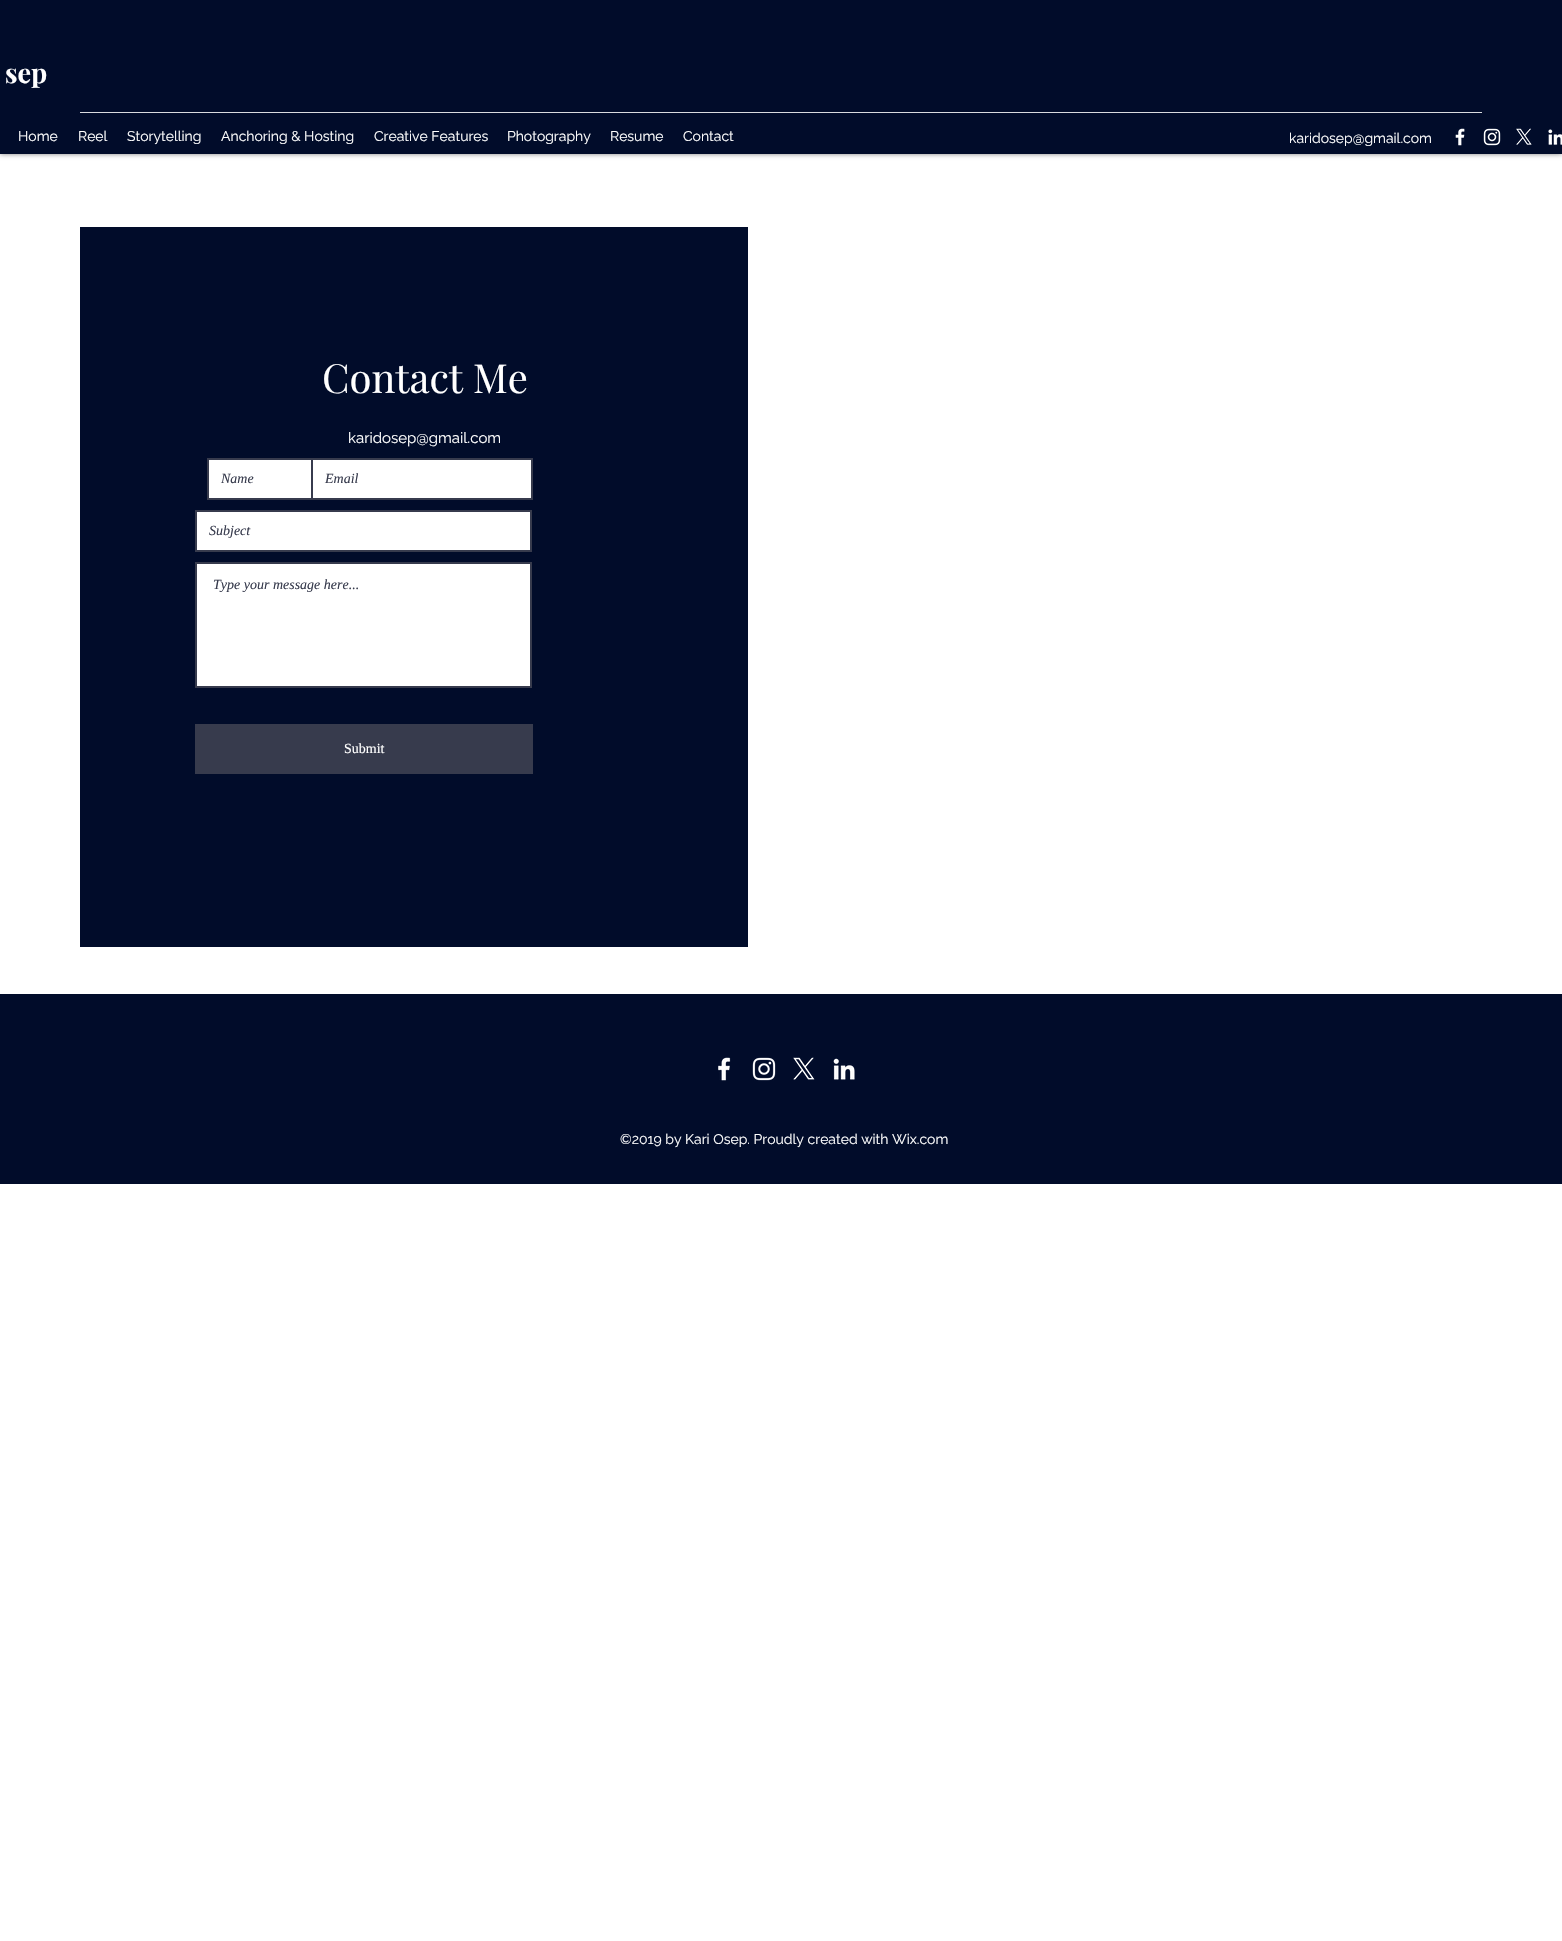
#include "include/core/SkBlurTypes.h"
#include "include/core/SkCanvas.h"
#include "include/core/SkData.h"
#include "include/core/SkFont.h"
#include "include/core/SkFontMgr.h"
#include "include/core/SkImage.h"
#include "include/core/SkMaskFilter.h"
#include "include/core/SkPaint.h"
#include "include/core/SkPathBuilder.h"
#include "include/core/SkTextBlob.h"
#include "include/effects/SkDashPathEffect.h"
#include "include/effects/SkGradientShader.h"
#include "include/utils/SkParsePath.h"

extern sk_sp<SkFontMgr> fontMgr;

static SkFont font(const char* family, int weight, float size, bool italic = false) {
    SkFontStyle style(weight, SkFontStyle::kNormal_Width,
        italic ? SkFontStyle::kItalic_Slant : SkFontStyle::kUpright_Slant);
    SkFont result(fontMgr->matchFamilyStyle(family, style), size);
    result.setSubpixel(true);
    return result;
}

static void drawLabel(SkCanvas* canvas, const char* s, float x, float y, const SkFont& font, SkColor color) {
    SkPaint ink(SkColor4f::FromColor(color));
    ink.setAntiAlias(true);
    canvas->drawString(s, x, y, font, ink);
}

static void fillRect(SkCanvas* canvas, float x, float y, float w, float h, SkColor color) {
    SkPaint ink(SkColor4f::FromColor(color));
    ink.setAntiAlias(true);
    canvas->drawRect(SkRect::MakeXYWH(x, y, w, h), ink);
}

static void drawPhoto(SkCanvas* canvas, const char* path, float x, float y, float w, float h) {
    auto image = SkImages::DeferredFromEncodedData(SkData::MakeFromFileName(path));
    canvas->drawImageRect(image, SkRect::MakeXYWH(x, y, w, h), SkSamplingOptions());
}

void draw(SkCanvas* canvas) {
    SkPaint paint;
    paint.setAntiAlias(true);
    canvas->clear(0xFFFFFFFF);
    paint.setColor(0x80000000);
    paint.setMaskFilter(SkMaskFilter::MakeBlur(kNormal_SkBlurStyle, 2.5f));
    canvas->drawRect(SkRect::MakeXYWH(0, 0, 1562, 154), paint);
    paint.setMaskFilter(nullptr);
    fillRect(canvas, 0, 0, 1562, 154, 0xFF010C2A);
    SkFont font1 = font("Playfair Display", 700, 27);
    drawLabel(canvas, "sep", 5, 83, font1, 0xFFFFFFFF);
    fillRect(canvas, 80, 112, 1402, 1, 0xFFD9DBDF);
    SkFont font2 = font("Raleway", 400, 14);
    drawLabel(canvas, "Home", 18, 141, font2, 0xFFFFFFFF);
    drawLabel(canvas, "Reel", 78, 141, font2, 0xFFFFFFFF);
    drawLabel(canvas, "Storytelling", 127, 141, font2, 0xFFFFFFFF);
    drawLabel(canvas, "Anchoring & Hosting", 221, 141, font2, 0xFFFFFFFF);
    drawLabel(canvas, "Creative Features", 374, 141, font2, 0xFFFFFFFF);
    drawLabel(canvas, "Photography", 507, 141, font2, 0xFFFFFFFF);
    drawLabel(canvas, "Resume", 610, 141, font2, 0xFFFFFFFF);
    drawLabel(canvas, "Contact", 683, 141, font2, 0xFFFFFFFF);
    drawLabel(canvas, "karidosep@gmail.com", 1289, 143, font2, 0xFFFFFFFF);
    drawPhoto(canvas, "assets/img1.png", 1455, 128, 10, 18);
    drawPhoto(canvas, "assets/img2.png", 1483, 128, 18, 18);
    drawPhoto(canvas, "assets/img3.png", 1516, 128, 16, 17);
    drawPhoto(canvas, "assets/img4.png", 1548, 129, 14, 16);
    fillRect(canvas, 80, 227, 668, 720, 0xFF010C2A);
    SkFont font3 = font("Playfair Display", 400, 40);
    drawLabel(canvas, "Contact Me", 322, 393, font3, 0xFFFFFFFF);
    SkFont font4 = font("Raleway", 400, 15);
    drawLabel(canvas, "karidosep@gmail.com", 348, 443, font4, 0xFFFFFFFF);
    fillRect(canvas, 209, 460, 102, 38, 0xFFFFFFFF);
    paint.setStroke(true);
    paint.setStrokeWidth(2);
    paint.setColor(0xFF373B4D);
    canvas->drawRect(SkRect::MakeXYWH(208, 459, 219, 40), paint);
    SkFont font5 = font("Liberation Serif", 400, 14, true);
    drawLabel(canvas, "Name", 221, 483, font5, 0xFF373B4D);
    paint.setStroke(false);
    paint.setColor(0xFFFFFFFF);
    canvas->drawRect(SkRect::MakeXYWH(312, 459, 220, 40), paint);
    paint.setStroke(true);
    paint.setColor(0xFF373B4D);
    canvas->drawRect(SkRect::MakeXYWH(312, 459, 220, 40), paint);
    drawLabel(canvas, "Email", 325, 483, font5, 0xFF373B4D);
    paint.setStroke(false);
    paint.setColor(0xFFFFFFFF);
    canvas->drawRect(SkRect::MakeXYWH(196, 511, 335, 40), paint);
    paint.setStroke(true);
    paint.setColor(0xFF373B4D);
    canvas->drawRect(SkRect::MakeXYWH(196, 511, 335, 40), paint);
    drawLabel(canvas, "Subject", 209, 535, font5, 0xFF373B4D);
    paint.setStroke(false);
    paint.setColor(0xFFFFFFFF);
    canvas->drawRect(SkRect::MakeXYWH(196, 563, 335, 124), paint);
    paint.setStroke(true);
    paint.setColor(0xFF373B4D);
    canvas->drawRect(SkRect::MakeXYWH(196, 563, 335, 124), paint);
    drawLabel(canvas, "Type your message here...", 213, 589, font5, 0xFF373B4D);
    fillRect(canvas, 195, 724, 338, 50, 0xFF373B4D);
    SkFont font6 = font("Liberation Serif", 400, 14);
    drawLabel(canvas, "Submit", 344, 753, font6, 0xFFFFFFFF);
    fillRect(canvas, 0, 994, 1562, 190, 0xFF010C2A);
    drawPhoto(canvas, "assets/img5.png", 718, 1057, 13, 24);
    drawPhoto(canvas, "assets/img6.png", 752, 1057, 24, 24);
    drawPhoto(canvas, "assets/img7.png", 793, 1057, 22, 23);
    drawPhoto(canvas, "assets/img8.png", 833, 1058, 22, 22);
    drawLabel(canvas, "©2019 by Kari Osep. Proudly created with Wix.com", 620, 1144, font2, 0xFFFFFFFF);
}
